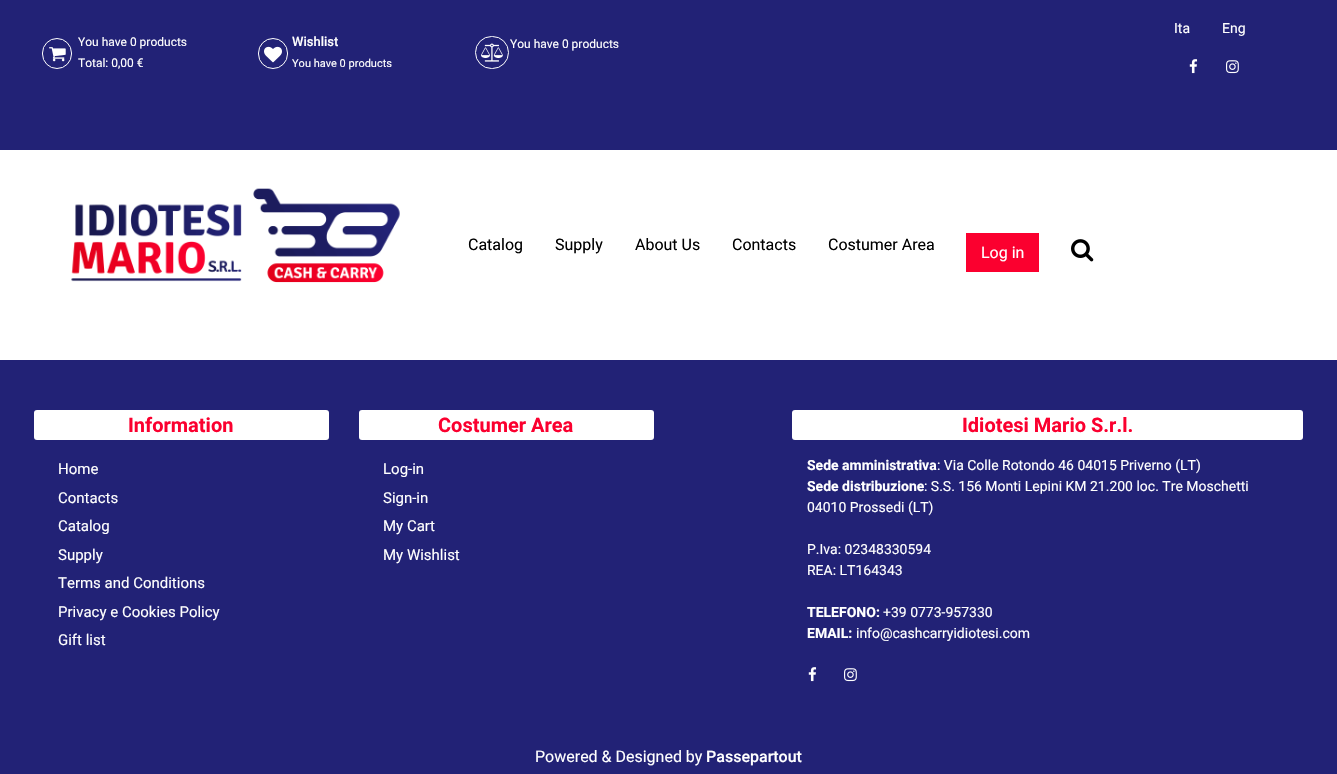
#include "include/core/SkBlurTypes.h"
#include "include/core/SkCanvas.h"
#include "include/core/SkData.h"
#include "include/core/SkFont.h"
#include "include/core/SkFontMgr.h"
#include "include/core/SkImage.h"
#include "include/core/SkMaskFilter.h"
#include "include/core/SkPaint.h"
#include "include/core/SkPathBuilder.h"
#include "include/core/SkTextBlob.h"
#include "include/effects/SkDashPathEffect.h"
#include "include/effects/SkGradientShader.h"
#include "include/utils/SkParsePath.h"

extern sk_sp<SkFontMgr> fontMgr;

static SkFont font(const char* family, int weight, float size, bool italic = false) {
    SkFontStyle style(weight, SkFontStyle::kNormal_Width,
        italic ? SkFontStyle::kItalic_Slant : SkFontStyle::kUpright_Slant);
    SkFont result(fontMgr->matchFamilyStyle(family, style), size);
    result.setSubpixel(true);
    return result;
}

static void drawLabel(SkCanvas* canvas, const char* s, float x, float y, const SkFont& font, SkColor color) {
    SkPaint ink(SkColor4f::FromColor(color));
    ink.setAntiAlias(true);
    canvas->drawString(s, x, y, font, ink);
}

static void fillRect(SkCanvas* canvas, float x, float y, float w, float h, SkColor color) {
    SkPaint ink(SkColor4f::FromColor(color));
    ink.setAntiAlias(true);
    canvas->drawRect(SkRect::MakeXYWH(x, y, w, h), ink);
}

static void fillRRect(SkCanvas* canvas, float x, float y, float w, float h, float radius, SkColor color) {
    SkPaint ink(SkColor4f::FromColor(color));
    ink.setAntiAlias(true);
    canvas->drawRoundRect(SkRect::MakeXYWH(x, y, w, h), radius, radius, ink);
}

static void drawPhoto(SkCanvas* canvas, const char* path, float x, float y, float w, float h) {
    auto image = SkImages::DeferredFromEncodedData(SkData::MakeFromFileName(path));
    canvas->drawImageRect(image, SkRect::MakeXYWH(x, y, w, h), SkSamplingOptions());
}

void draw(SkCanvas* canvas) {
    SkPaint paint;
    paint.setAntiAlias(true);
    canvas->clear(0xFFFFFFFF);
    fillRect(canvas, 0, 0, 1337, 150, 0xFF222276);
    SkFont font1 = font("Roboto", 400, 14);
    drawLabel(canvas, "Ita", 1174, 33, font1, 0xFFFFFFFF);
    drawLabel(canvas, "Eng", 1222, 33, font1, 0xFFFFFFFF);
    drawPhoto(canvas, "assets/img1.png", 1189, 59, 9, 15);
    drawPhoto(canvas, "assets/img2.png", 1226, 60, 13, 14);
    paint.setStroke(true);
    paint.setStrokeWidth(1);
    paint.setColor(0xFFFFFFFF);
    canvas->drawRoundRect(SkRect::MakeXYWH(42.5f, 38.5f, 29, 30), 14.5f, 14.5f, paint);
    drawPhoto(canvas, "assets/img3.png", 49, 47, 17, 15);
    SkFont font2 = font("Roboto", 400, 12);
    drawLabel(canvas, "You have 0 products", 78, 46, font2, 0xFFFFFFFF);
    drawLabel(canvas, "Total: 0,00 €", 78, 67, font2, 0xFFFFFFFF);
    canvas->drawRoundRect(SkRect::MakeXYWH(258.5f, 38.5f, 29, 30), 14.5f, 14.5f, paint);
    drawPhoto(canvas, "assets/img4.png", 264, 46, 18, 17);
    SkFont font3 = font("Roboto", 500, 13);
    drawLabel(canvas, "Wishlist", 292, 46, font3, 0xFFFFFFFF);
    SkFont font4 = font("Roboto", 400, 11);
    drawLabel(canvas, "You have 0 products", 292, 67, font4, 0xFFFFFFFF);
    canvas->drawRoundRect(SkRect::MakeXYWH(475.5f, 36.5f, 33, 32), 16, 16, paint);
    drawPhoto(canvas, "assets/img5.png", 481, 43, 22, 19);
    drawLabel(canvas, "You have 0 products", 510, 48, font2, 0xFFFFFFFF);
    drawPhoto(canvas, "assets/img6.png", 71, 188, 329, 95);
    SkFont font5 = font("Roboto", 400, 16);
    drawLabel(canvas, "Catalog", 468, 250, font5, 0xFF000000);
    drawLabel(canvas, "Supply", 555, 250, font5, 0xFF000000);
    drawLabel(canvas, "About Us", 635, 250, font5, 0xFF000000);
    drawLabel(canvas, "Contacts", 732, 250, font5, 0xFF000000);
    drawLabel(canvas, "Costumer Area", 828, 250, font5, 0xFF000000);
    fillRect(canvas, 966, 233, 73, 39, 0xFFFB002F);
    drawLabel(canvas, "Log in", 981, 258, font5, 0xFFFFFFFF);
    drawPhoto(canvas, "assets/img7.png", 1071, 239, 23, 23);
    fillRect(canvas, 0, 360, 1337, 414, 0xFF222276);
    fillRRect(canvas, 34, 410, 295, 30, 3, 0xFFFFFFFF);
    SkFont font6 = font("Roboto", 700, 20);
    drawLabel(canvas, "Information", 128, 432, font6, 0xFFFB002F);
    SkFont font7 = font("Roboto", 400, 15);
    drawLabel(canvas, "Home", 58, 474, font7, 0xFFFFFFFF);
    drawLabel(canvas, "Contacts", 58, 503, font7, 0xFFFFFFFF);
    drawLabel(canvas, "Catalog", 58, 531, font7, 0xFFFFFFFF);
    drawLabel(canvas, "Supply", 58, 560, font7, 0xFFFFFFFF);
    drawLabel(canvas, "Terms and Conditions", 58, 588, font7, 0xFFFFFFFF);
    drawLabel(canvas, "Privacy e Cookies Policy", 58, 617, font7, 0xFFFFFFFF);
    drawLabel(canvas, "Gift list", 58, 645, font7, 0xFFFFFFFF);
    fillRRect(canvas, 359, 410, 295, 30, 3, 0xFFFFFFFF);
    drawLabel(canvas, "Costumer Area", 438, 432, font6, 0xFFFB002F);
    drawLabel(canvas, "Log-in", 383, 474, font7, 0xFFFFFFFF);
    drawLabel(canvas, "Sign-in", 383, 503, font7, 0xFFFFFFFF);
    drawLabel(canvas, "My Cart", 383, 531, font7, 0xFFFFFFFF);
    drawLabel(canvas, "My Wishlist", 383, 560, font7, 0xFFFFFFFF);
    fillRRect(canvas, 792, 410, 511, 30, 3, 0xFFFFFFFF);
    drawLabel(canvas, "Idiotesi Mario S.r.l.", 962, 432, font6, 0xFFFB002F);
    SkFont font8 = font("Roboto", 700, 14);
    drawLabel(canvas, "Sede amministrativa", 807, 470, font8, 0xFFFFFFFF);
    drawLabel(canvas, ": Via Colle Rotondo 46 04015 Priverno (LT)", 937, 470, font1, 0xFFFFFFFF);
    drawLabel(canvas, "Sede distribuzione", 807, 491, font8, 0xFFFFFFFF);
    drawLabel(canvas, ": S.S. 156 Monti Lepini KM 21.200 loc. Tre Moschetti", 924, 491, font1, 0xFFFFFFFF);
    drawLabel(canvas, "04010 Prossedi (LT)", 807, 512, font1, 0xFFFFFFFF);
    drawLabel(canvas, "P.Iva: 02348330594", 807, 554, font1, 0xFFFFFFFF);
    drawLabel(canvas, "REA: LT164343", 807, 575, font1, 0xFFFFFFFF);
    drawLabel(canvas, "TELEFONO:", 807, 617, font8, 0xFFFFFFFF);
    drawLabel(canvas, "+39 0773-957330", 883, 617, font1, 0xFFFFFFFF);
    drawLabel(canvas, "EMAIL:", 807, 638, font8, 0xFFFFFFFF);
    drawLabel(canvas, "info@cashcarryidiotesi.com", 856, 638, font1, 0xFFFFFFFF);
    drawPhoto(canvas, "assets/img1.png", 808, 667, 9, 15);
    drawPhoto(canvas, "assets/img2.png", 844, 668, 13, 14);
    drawLabel(canvas, "Powered & Designed by", 535, 762, font5, 0xFFFFFFFF);
    SkFont font9 = font("Roboto", 500, 16);
    drawLabel(canvas, "Passepartout", 706, 762, font9, 0xFFFFFFFF);
}
